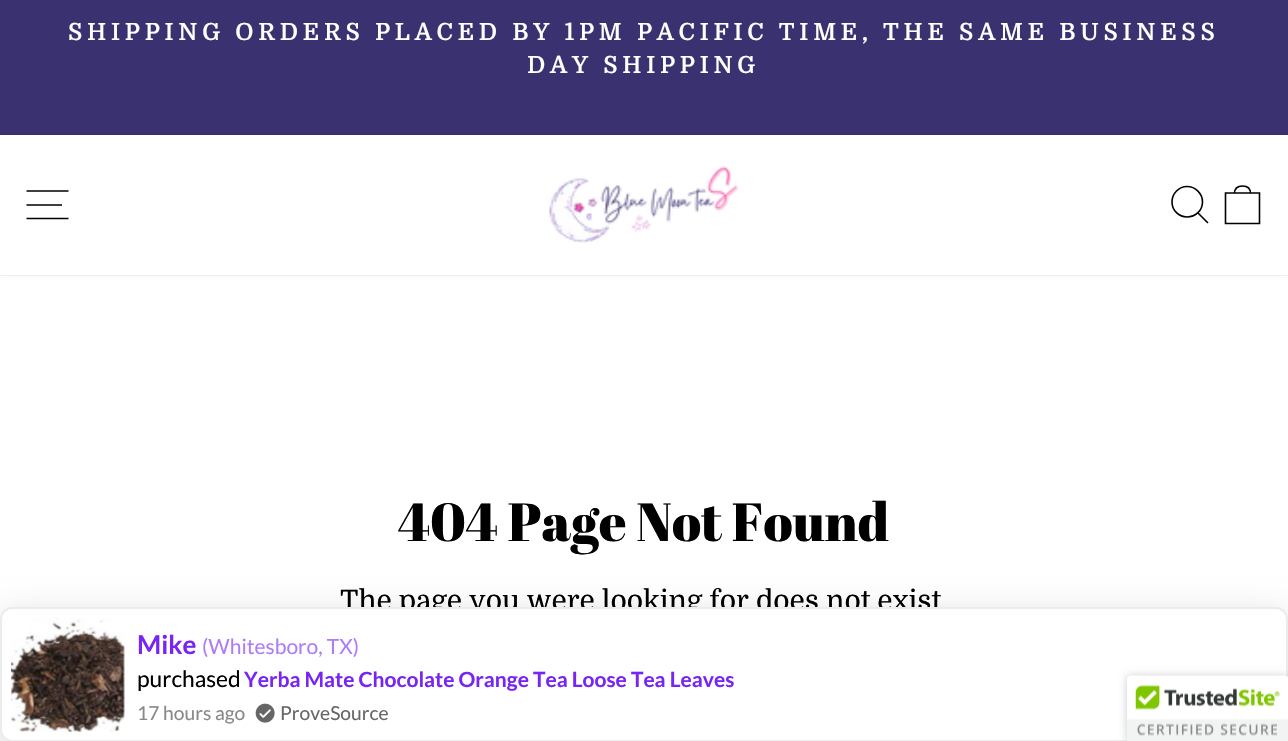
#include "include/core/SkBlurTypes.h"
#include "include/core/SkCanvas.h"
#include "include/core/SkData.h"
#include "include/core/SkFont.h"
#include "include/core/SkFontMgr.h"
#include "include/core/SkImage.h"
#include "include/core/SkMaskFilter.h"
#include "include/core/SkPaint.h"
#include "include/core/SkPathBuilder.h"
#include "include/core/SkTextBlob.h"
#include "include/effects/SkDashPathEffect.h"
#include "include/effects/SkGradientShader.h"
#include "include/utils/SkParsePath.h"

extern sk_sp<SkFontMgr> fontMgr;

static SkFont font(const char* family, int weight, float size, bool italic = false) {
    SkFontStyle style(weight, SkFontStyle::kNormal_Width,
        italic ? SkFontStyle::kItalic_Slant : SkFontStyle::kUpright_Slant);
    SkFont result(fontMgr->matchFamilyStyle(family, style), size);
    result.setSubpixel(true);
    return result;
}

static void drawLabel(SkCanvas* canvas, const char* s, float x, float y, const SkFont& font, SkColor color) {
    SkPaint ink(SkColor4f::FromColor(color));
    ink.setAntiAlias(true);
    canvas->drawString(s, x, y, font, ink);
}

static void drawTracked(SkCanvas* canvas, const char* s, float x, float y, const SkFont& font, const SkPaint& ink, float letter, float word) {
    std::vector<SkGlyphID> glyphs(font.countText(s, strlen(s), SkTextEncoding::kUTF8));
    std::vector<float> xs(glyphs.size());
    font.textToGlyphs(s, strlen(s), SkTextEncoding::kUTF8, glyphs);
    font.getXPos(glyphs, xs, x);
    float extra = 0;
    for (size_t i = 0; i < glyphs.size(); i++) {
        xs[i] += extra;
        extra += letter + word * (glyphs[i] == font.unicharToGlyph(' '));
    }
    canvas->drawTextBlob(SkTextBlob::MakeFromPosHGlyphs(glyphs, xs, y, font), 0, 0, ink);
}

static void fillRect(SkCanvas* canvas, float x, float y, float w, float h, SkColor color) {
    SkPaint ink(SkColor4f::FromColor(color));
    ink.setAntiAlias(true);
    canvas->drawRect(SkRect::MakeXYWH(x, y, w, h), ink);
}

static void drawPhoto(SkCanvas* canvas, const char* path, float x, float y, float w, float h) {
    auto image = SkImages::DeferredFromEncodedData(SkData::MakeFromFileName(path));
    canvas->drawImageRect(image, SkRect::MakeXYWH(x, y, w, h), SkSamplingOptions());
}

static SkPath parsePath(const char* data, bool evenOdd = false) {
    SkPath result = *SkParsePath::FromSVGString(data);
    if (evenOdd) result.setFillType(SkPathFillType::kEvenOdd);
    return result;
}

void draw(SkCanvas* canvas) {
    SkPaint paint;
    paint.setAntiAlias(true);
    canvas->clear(0xFFFFFFFF);
    fillRect(canvas, 0, 0, 1288, 135, 0xFF3A3170);
    SkFont font1 = font("Domine", 600, 23.6f);
    paint.setColor(0xFFFFFFFF);
    drawTracked(canvas, "SHIPPING ORDERS PLACED BY 1PM PACIFIC TIME, THE SAME BUSINESS", 68, 40, font1, paint, 4.73f, 0);
    drawTracked(canvas, "DAY SHIPPING", 527, 73, font1, paint, 4.73f, 0);
    paint.setColor(0x33000000);
    paint.setMaskFilter(SkMaskFilter::MakeBlur(kNormal_SkBlurStyle, 1));
    canvas->drawRect(SkRect::MakeXYWH(0, 135, 1288, 140), paint);
    paint.setMaskFilter(nullptr);
    fillRect(canvas, 0, 135, 1288, 140, 0xFFFFFFFF);
    paint.setStroke(true);
    paint.setStrokeWidth(1.6f);
    paint.setColor(0xFF000000);
    canvas->drawPath(parsePath("M26.5 191H68.5M26.5 205H62M26.5 218.5H68.5"), paint);
    drawPhoto(canvas, "assets/img1.png", 549, 166, 190, 77);
    canvas->drawPath(parsePath("M1202.5 202C1202.5 210.5 1195.5 217 1187 217C1179 217 1172 210.5 1172 202C1172 193.5 1179 186.5 1187 186.5C1195.5 186.5 1202.5 193.5 1202.5 202ZM1208 223L1198 213"), paint);
    canvas->drawPath(parsePath("M1225.5 193H1259.5V223.5H1225.5ZM1234.5 193.5C1234.5 187.5 1238 186 1242.5 186C1247 186 1250.5 187.5 1250.5 193.5"), paint);
    SkFont font2 = font("Abril Fatface", 400, 53.5f);
    drawLabel(canvas, "404 Page Not Found", 398, 541, font2, 0xFF000000);
    SkFont font3 = font("Domine", 400, 28);
    drawLabel(canvas, "The page you were looking for does not exist", 340, 610, font3, 0xFF000000);
    paint.setStroke(false);
    paint.setColor(0x26000000);
    paint.setMaskFilter(SkMaskFilter::MakeBlur(kNormal_SkBlurStyle, 17.5f));
    canvas->drawRoundRect(SkRect::MakeXYWH(0, 616, 1288, 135), 12, 12, paint);
    paint.setMaskFilter(nullptr);
    paint.setColor(0xFFFFFFFF);
    canvas->drawRoundRect(SkRect::MakeXYWH(1, 608, 1286, 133), 11, 11, paint);
    paint.setStroke(true);
    paint.setStrokeWidth(2);
    paint.setColor(0xFFECECEC);
    canvas->drawRoundRect(SkRect::MakeXYWH(1, 608, 1286, 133), 11, 11, paint);
    drawPhoto(canvas, "assets/img2.png", 11, 618, 114, 114);
    SkFont font4 = font("Lato", 700, 26);
    drawLabel(canvas, "Mike", 137, 654, font4, 0xFF7825F3);
    SkFont font5 = font("Lato", 400, 21);
    drawLabel(canvas, "(Whitesboro, TX)", 202, 654, font5, 0xFFAE7CF8);
    SkFont font6 = font("Lato", 400, 22.75f);
    drawLabel(canvas, "purchased", 137, 687, font6, 0xFF000000);
    SkFont font7 = font("Lato", 700, 21);
    drawLabel(canvas, "Yerba Mate Chocolate Orange Tea Loose Tea Leaves", 244, 687, font7, 0xFF7825F3);
    SkFont font8 = font("Lato", 400, 19.25f);
    drawLabel(canvas, "17 hours ago", 137, 720, font8, 0xFF888888);
    drawPhoto(canvas, "assets/img3.png", 255, 703, 20, 20);
    drawLabel(canvas, "ProveSource", 280, 720, font8, 0xFF666666);
    paint.setStroke(false);
    paint.setColor(0x33000000);
    paint.setMaskFilter(SkMaskFilter::MakeBlur(kNormal_SkBlurStyle, 4.5f));
    canvas->drawRoundRect(SkRect::MakeXYWH(1127, 676, 161, 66), 4, 4, paint);
    paint.setMaskFilter(nullptr);
    paint.setColor(0xFFFFFFFF);
    canvas->drawPath(parsePath("M1131 676H1288V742H1127V680C1127 678 1129 676 1131 676Z"), paint);
    drawPhoto(canvas, "assets/img4.png", 1127, 675, 161, 66);
}
